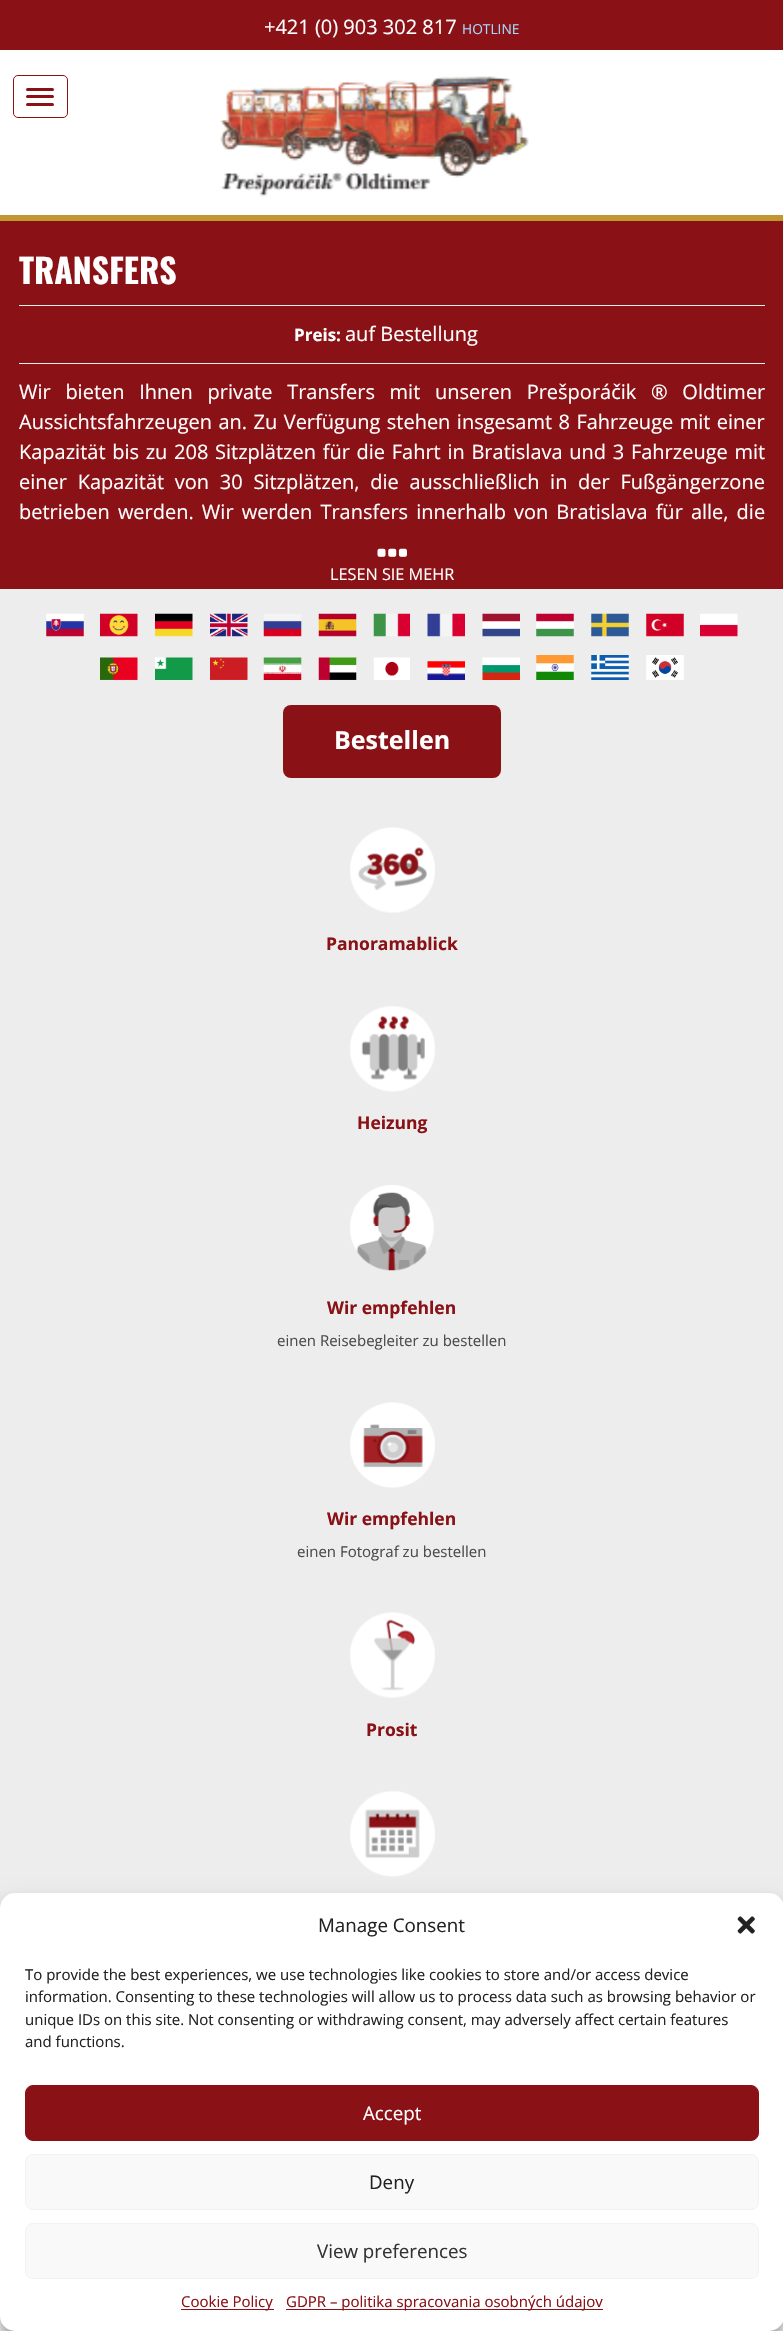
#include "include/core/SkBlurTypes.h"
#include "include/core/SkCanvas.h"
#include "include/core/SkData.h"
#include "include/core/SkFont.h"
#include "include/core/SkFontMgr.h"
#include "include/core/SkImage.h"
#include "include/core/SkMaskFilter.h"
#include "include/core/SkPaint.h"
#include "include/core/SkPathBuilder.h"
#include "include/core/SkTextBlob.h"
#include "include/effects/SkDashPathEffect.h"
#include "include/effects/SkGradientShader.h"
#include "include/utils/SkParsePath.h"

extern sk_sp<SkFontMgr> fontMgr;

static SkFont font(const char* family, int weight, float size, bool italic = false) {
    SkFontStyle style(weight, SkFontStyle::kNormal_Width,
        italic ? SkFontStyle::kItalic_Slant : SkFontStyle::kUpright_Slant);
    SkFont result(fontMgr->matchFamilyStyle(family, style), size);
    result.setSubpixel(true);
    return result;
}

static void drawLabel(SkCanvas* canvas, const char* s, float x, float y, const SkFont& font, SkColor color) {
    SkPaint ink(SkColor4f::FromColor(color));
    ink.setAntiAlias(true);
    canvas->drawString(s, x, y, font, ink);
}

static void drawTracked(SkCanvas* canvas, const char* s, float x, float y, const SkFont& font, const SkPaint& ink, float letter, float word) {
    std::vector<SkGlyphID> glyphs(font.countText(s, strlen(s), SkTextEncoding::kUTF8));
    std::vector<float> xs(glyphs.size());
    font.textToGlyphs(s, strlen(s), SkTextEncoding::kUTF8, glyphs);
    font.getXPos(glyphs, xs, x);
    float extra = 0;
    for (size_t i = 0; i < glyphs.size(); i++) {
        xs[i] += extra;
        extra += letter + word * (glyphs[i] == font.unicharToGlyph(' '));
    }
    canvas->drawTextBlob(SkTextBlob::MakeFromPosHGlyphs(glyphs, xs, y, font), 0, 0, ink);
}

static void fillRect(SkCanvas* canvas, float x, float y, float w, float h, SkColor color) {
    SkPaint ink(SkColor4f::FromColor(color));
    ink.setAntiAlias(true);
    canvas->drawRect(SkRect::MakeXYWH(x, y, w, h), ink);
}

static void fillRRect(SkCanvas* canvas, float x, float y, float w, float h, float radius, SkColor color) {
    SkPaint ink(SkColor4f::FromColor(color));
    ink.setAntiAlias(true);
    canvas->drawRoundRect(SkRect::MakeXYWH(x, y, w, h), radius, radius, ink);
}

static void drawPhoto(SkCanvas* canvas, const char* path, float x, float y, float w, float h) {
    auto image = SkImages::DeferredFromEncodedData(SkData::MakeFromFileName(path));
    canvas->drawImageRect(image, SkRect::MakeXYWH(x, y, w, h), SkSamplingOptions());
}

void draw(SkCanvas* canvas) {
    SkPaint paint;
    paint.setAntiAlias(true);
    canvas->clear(0xFFFFFFFF);
    fillRect(canvas, 0, 0, 783, 50, 0xFF8A1116);
    SkFont font1 = font("Open Sans", 400, 20);
    drawLabel(canvas, "+421 (0) 903 302 817", 264, 34, font1, 0xFFFFFFFF);
    SkFont font2 = font("Open Sans", 400, 13.75f);
    drawLabel(canvas, "HOTLINE", 462, 34, font2, 0xFFA3DAFF);
    fillRect(canvas, 0, 215, 783, 6, 0xFFC09730);
    paint.setStroke(true);
    paint.setStrokeWidth(1);
    paint.setColor(0xFF8A1116);
    canvas->drawRoundRect(SkRect::MakeXYWH(13.5f, 75.5f, 54, 42), 4.5f, 4.5f, paint);
    fillRRect(canvas, 26, 88, 28, 3, 1.5f, 0xFF8A1116);
    fillRRect(canvas, 26, 95, 28, 3, 1.5f, 0xFF8A1116);
    fillRRect(canvas, 26, 103, 28, 3, 1.5f, 0xFF8A1116);
    drawPhoto(canvas, "assets/img1.png", 220, 76, 309, 121);
    fillRect(canvas, 0, 589, 783, 1319, 0xFFEDEDED);
    fillRect(canvas, 0, 221, 783, 368, 0xFF8A1116);
    SkFont font3 = font("Oswald", 700, 33.75f);
    drawLabel(canvas, "TRANSFERS", 19, 284, font3, 0xFFFFFFFF);
    fillRect(canvas, 19, 305, 746, 1, 0xFFEEEEEE);
    SkFont font4 = font("Open Sans", 700, 17);
    drawLabel(canvas, "Preis:", 294, 341, font4, 0xFFFFFFFF);
    drawLabel(canvas, "auf Bestellung", 345, 341, font1, 0xFFFFFFFF);
    fillRect(canvas, 19, 363, 746, 1, 0xFFEEEEEE);
    paint.setStroke(false);
    paint.setColor(0xFFFFFFFF);
    drawTracked(canvas, "Wir bieten Ihnen private Transfers mit unseren Prešporáčik ® Oldtimer", 19, 399, font1, paint, 0, 9.5f);
    drawTracked(canvas, "Aussichtsfahrzeugen an. Zu Verfügung stehen insgesamt 8 Fahrzeuge mit einer", 19, 429, font1, paint, 0, 1.25f);
    drawTracked(canvas, "Kapazität bis zu 208 Sitzplätzen für die Fahrt in Bratislava und 3 Fahrzeuge mit", 19, 459, font1, paint, 0, 1.5f);
    drawTracked(canvas, "einer Kapazität von 30 Sitzplätzen, die ausschließlich in der Fußgängerzone", 19, 489, font1, paint, 0, 5.5f);
    drawTracked(canvas, "betrieben werden. Wir werden Transfers innerhalb von Bratislava für alle, die", 19, 519, font1, paint, 0, 2.9f);
    drawPhoto(canvas, "assets/img2.png", 377, 548, 30, 9);
    SkFont font5 = font("Open Sans", 400, 16.25f);
    drawLabel(canvas, "LESEN SIE MEHR", 330, 580, font5, 0xFFFFFFFF);
    drawPhoto(canvas, "assets/img3.png", 46, 613, 38, 24);
    drawPhoto(canvas, "assets/img4.png", 100, 613, 38, 24);
    drawPhoto(canvas, "assets/img5.png", 155, 613, 38, 24);
    drawPhoto(canvas, "assets/img6.png", 210, 613, 38, 24);
    drawPhoto(canvas, "assets/img7.png", 263, 614, 39, 23);
    drawPhoto(canvas, "assets/img8.png", 318, 613, 39, 24);
    drawPhoto(canvas, "assets/img9.png", 373, 613, 37, 24);
    drawPhoto(canvas, "assets/img10.png", 427, 613, 38, 24);
    drawPhoto(canvas, "assets/img11.png", 482, 613, 38, 24);
    drawPhoto(canvas, "assets/img12.png", 536, 613, 38, 24);
    drawPhoto(canvas, "assets/img13.png", 591, 613, 38, 24);
    drawPhoto(canvas, "assets/img14.png", 646, 613, 38, 24);
    drawPhoto(canvas, "assets/img15.png", 700, 613, 38, 24);
    drawPhoto(canvas, "assets/img16.png", 100, 657, 38, 23);
    drawPhoto(canvas, "assets/img17.png", 155, 657, 38, 23);
    drawPhoto(canvas, "assets/img18.png", 210, 657, 38, 23);
    drawPhoto(canvas, "assets/img19.png", 263, 657, 39, 23);
    drawPhoto(canvas, "assets/img20.png", 318, 657, 39, 23);
    drawPhoto(canvas, "assets/img21.png", 373, 657, 37, 23);
    drawPhoto(canvas, "assets/img22.png", 427, 661, 38, 19);
    drawPhoto(canvas, "assets/img23.png", 482, 657, 38, 23);
    drawPhoto(canvas, "assets/img24.png", 536, 655, 38, 25);
    drawPhoto(canvas, "assets/img25.png", 591, 655, 38, 25);
    drawPhoto(canvas, "assets/img26.png", 646, 655, 38, 25);
    fillRRect(canvas, 283, 705, 218, 73, 8, 0xFF8A1116);
    SkFont font6 = font("Open Sans", 700, 25);
    drawLabel(canvas, "Bestellen", 334, 749, font6, 0xFFFFFFFF);
    drawPhoto(canvas, "assets/img27.png", 350, 827, 85, 86);
    SkFont font7 = font("Open Sans", 700, 17.5f);
    drawLabel(canvas, "Panoramablick", 326, 950, font7, 0xFF8A1116);
    drawPhoto(canvas, "assets/img28.png", 350, 1006, 85, 86);
    drawLabel(canvas, "Heizung", 357, 1129, font7, 0xFF8A1116);
    drawPhoto(canvas, "assets/img29.png", 350, 1185, 84, 86);
    drawLabel(canvas, "Wir empfehlen", 327, 1314, font7, 0xFF8A1116);
    SkFont font8 = font("Open Sans", 400, 15);
    drawLabel(canvas, "einen Reisebegleiter zu bestellen", 277, 1346, font8, 0xFF4C4C4C);
    drawPhoto(canvas, "assets/img30.png", 350, 1402, 85, 86);
    drawLabel(canvas, "Wir empfehlen", 327, 1525, font7, 0xFF8A1116);
    drawLabel(canvas, "einen Fotograf zu bestellen", 297, 1557, font8, 0xFF4C4C4C);
    drawPhoto(canvas, "assets/img31.png", 350, 1612, 85, 86);
    drawLabel(canvas, "Prosit", 366, 1736, font7, 0xFF8A1116);
    drawPhoto(canvas, "assets/img32.png", 350, 1791, 85, 86);
    paint.setColor(0x3B000000);
    paint.setMaskFilter(SkMaskFilter::MakeBlur(kNormal_SkBlurStyle, 4));
    canvas->drawRoundRect(SkRect::MakeXYWH(0, 1900, 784, 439), 15, 15, paint);
    paint.setMaskFilter(nullptr);
    paint.setColor(0x30000000);
    paint.setMaskFilter(SkMaskFilter::MakeBlur(kNormal_SkBlurStyle, 12.5f));
    canvas->drawRoundRect(SkRect::MakeXYWH(0, 1905, 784, 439), 15, 15, paint);
    paint.setMaskFilter(nullptr);
    fillRRect(canvas, 0, 1893, 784, 438, 15, 0xFFFFFFFF);
    SkFont font9 = font("Open Sans", 400, 18.75f);
    drawLabel(canvas, "Manage Consent", 318, 1932, font9, 0xFF222222);
    drawPhoto(canvas, "assets/img33.png", 737, 1916, 18, 18);
    drawLabel(canvas, "To provide the best experiences, we use technologies like cookies to store and/or access device", 25, 1980, font8, 0xFF222222);
    drawLabel(canvas, "information. Consenting to these technologies will allow us to process data such as browsing behavior or", 25, 2002, font8, 0xFF222222);
    drawLabel(canvas, "unique IDs on this site. Not consenting or withdrawing consent, may adversely affect certain features", 25, 2025, font8, 0xFF222222);
    drawLabel(canvas, "and functions.", 25, 2047, font8, 0xFF222222);
    paint.setColor(0xFF8A1116);
    canvas->drawRoundRect(SkRect::MakeXYWH(25.5f, 2085.5f, 733, 55), 7.5f, 7.5f, paint);
    paint.setStroke(true);
    canvas->drawRoundRect(SkRect::MakeXYWH(25.5f, 2085.5f, 733, 55), 7.5f, 7.5f, paint);
    drawLabel(canvas, "Accept", 363, 2120, font9, 0xFFFFFFFF);
    paint.setStroke(false);
    paint.setColor(0xFFF9F9F9);
    canvas->drawRoundRect(SkRect::MakeXYWH(25.5f, 2154.5f, 733, 55), 7.5f, 7.5f, paint);
    paint.setStroke(true);
    paint.setColor(0xFFF2F2F2);
    canvas->drawRoundRect(SkRect::MakeXYWH(25.5f, 2154.5f, 733, 55), 7.5f, 7.5f, paint);
    drawLabel(canvas, "Deny", 369, 2189, font9, 0xFF222222);
    paint.setStroke(false);
    paint.setColor(0xFFF9F9F9);
    canvas->drawRoundRect(SkRect::MakeXYWH(25.5f, 2223.5f, 733, 55), 7.5f, 7.5f, paint);
    paint.setStroke(true);
    paint.setColor(0xFFF2F2F2);
    canvas->drawRoundRect(SkRect::MakeXYWH(25.5f, 2223.5f, 733, 55), 7.5f, 7.5f, paint);
    drawLabel(canvas, "View preferences", 317, 2258, font9, 0xFF333333);
    fillRect(canvas, 181, 2309, 93, 1, 0xFF8A1116);
    drawLabel(canvas, "Cookie Policy", 181, 2307, font8, 0xFF8A1116);
    fillRect(canvas, 286, 2309, 317, 1, 0xFF8A1116);
    drawLabel(canvas, "GDPR – politika spracovania osobných údajov", 286, 2307, font8, 0xFF8A1116);
}
